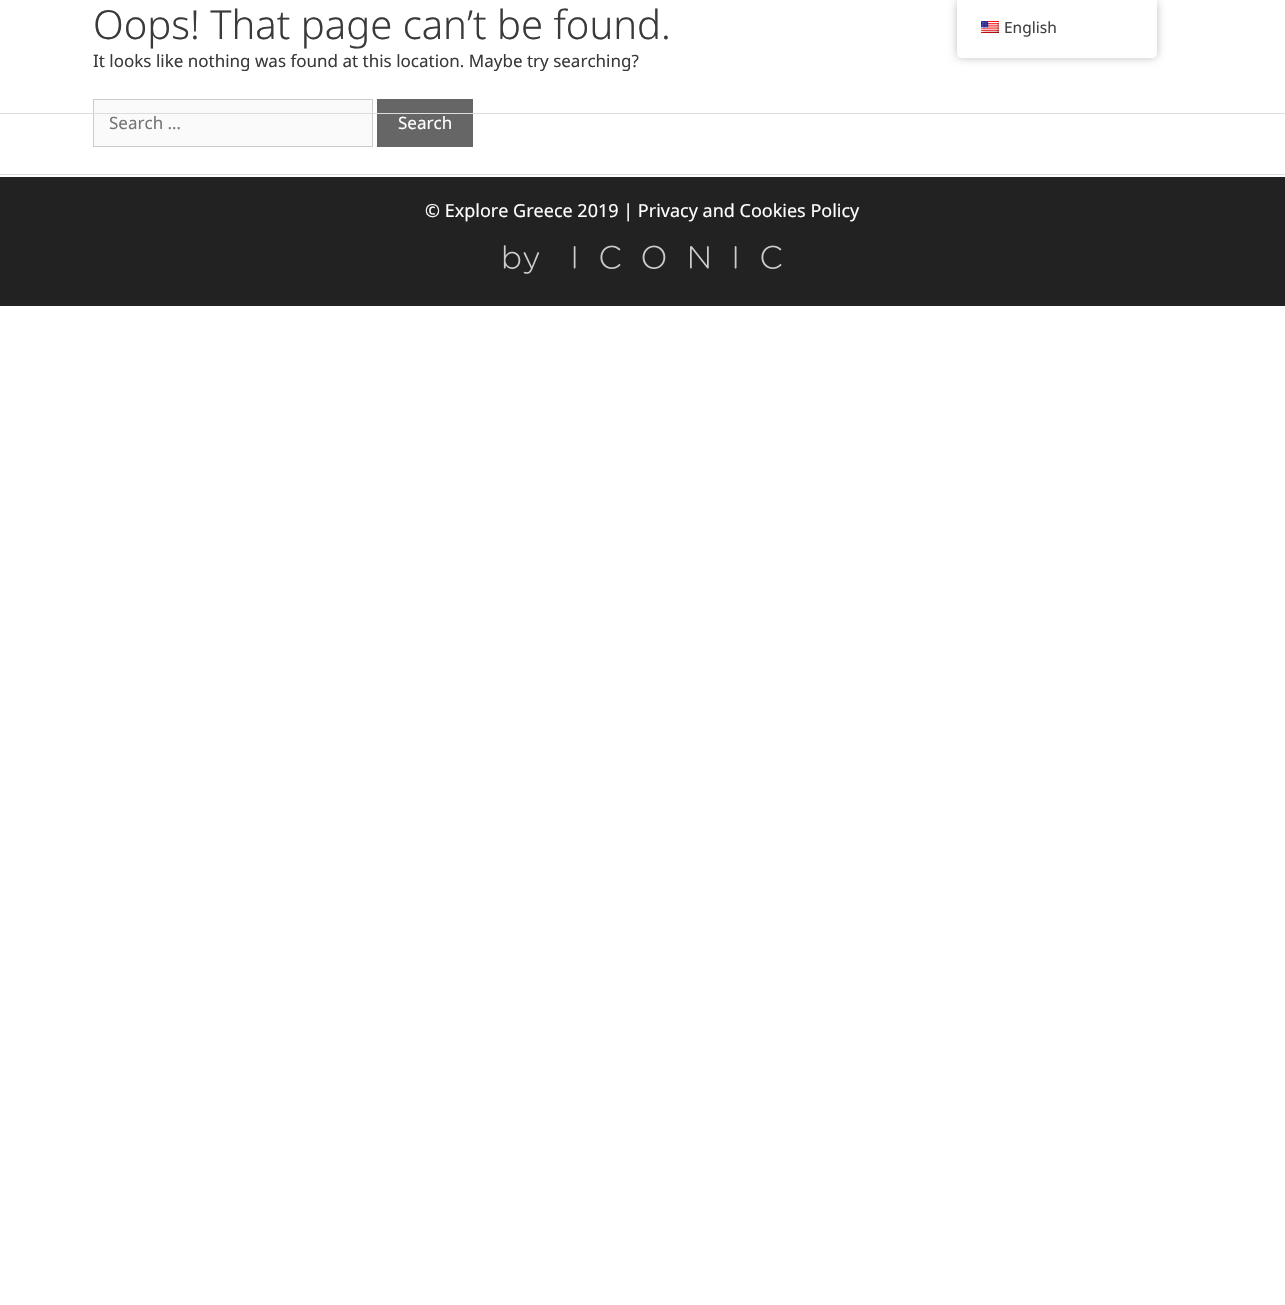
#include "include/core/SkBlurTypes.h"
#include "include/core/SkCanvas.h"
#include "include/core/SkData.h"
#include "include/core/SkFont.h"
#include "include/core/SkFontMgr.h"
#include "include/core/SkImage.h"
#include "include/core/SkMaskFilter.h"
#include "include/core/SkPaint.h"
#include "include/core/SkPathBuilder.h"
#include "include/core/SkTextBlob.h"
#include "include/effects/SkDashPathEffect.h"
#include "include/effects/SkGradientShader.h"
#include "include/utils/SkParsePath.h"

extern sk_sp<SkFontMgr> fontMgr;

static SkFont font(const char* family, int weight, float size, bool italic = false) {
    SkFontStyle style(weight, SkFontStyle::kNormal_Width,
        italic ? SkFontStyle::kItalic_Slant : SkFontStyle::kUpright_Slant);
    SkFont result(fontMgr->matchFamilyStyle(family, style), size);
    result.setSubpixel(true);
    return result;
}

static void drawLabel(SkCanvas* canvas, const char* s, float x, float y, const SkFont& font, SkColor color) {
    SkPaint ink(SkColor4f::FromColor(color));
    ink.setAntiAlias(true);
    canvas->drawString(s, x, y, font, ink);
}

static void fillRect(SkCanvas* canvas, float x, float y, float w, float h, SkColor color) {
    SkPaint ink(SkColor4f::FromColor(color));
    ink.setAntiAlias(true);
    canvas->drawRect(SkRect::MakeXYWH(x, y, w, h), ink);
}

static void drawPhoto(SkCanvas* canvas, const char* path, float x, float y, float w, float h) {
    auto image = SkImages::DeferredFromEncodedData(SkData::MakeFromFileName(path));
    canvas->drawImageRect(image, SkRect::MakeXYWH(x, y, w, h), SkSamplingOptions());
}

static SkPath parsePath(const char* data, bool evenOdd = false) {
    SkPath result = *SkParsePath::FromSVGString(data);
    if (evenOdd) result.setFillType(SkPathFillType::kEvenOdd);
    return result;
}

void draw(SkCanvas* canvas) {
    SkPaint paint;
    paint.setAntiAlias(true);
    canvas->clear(0xFFFFFFFF);
    SkFont font1 = font("Noto Sans", 300, 40);
    drawLabel(canvas, "Oops! That page can’t be found.", 93, 39, font1, 0xFF3A3A3A);
    SkFont font2 = font("Noto Sans", 400, 17);
    drawLabel(canvas, "It looks like nothing was found at this location. Maybe try searching?", 93, 67, font2, 0xFF3A3A3A);
    paint.setColor(0xFFFAFAFA);
    canvas->drawRect(SkRect::MakeXYWH(93.5f, 99.5f, 279, 47), paint);
    paint.setStroke(true);
    paint.setStrokeWidth(1);
    paint.setColor(0xFFCCCCCC);
    canvas->drawRect(SkRect::MakeXYWH(93.5f, 99.5f, 279, 47), paint);
    drawLabel(canvas, "Search …", 109, 129, font2, 0xFF757575);
    fillRect(canvas, 377, 99, 96, 48, 0xFF666666);
    drawLabel(canvas, "Search", 398, 129, font2, 0xFFFFFFFF);
    paint.setStroke(false);
    paint.setColor(0x40000000);
    paint.setMaskFilter(SkMaskFilter::MakeBlur(kNormal_SkBlurStyle, 4));
    canvas->drawRoundRect(SkRect::MakeXYWH(957, 0, 200, 58), 5, 5, paint);
    paint.setMaskFilter(nullptr);
    paint.setColor(0xFFFFFFFF);
    canvas->drawPath(parsePath("M957 0H1157V53C1157 56 1155 58 1152 58H962C959 58 957 56 957 53Z"), paint);
    drawPhoto(canvas, "assets/img1.png", 981, 21, 18, 12);
    SkFont font3 = font("Noto Sans", 400, 15.5f);
    drawLabel(canvas, "English", 1004, 33, font3, 0xFF404040);
    fillRect(canvas, 0, 113, 1285, 1, 0xFFDDDDDD);
    fillRect(canvas, 0, 174, 1285, 1, 0xFFDDDDDD);
    fillRect(canvas, 0, 177, 1285, 129, 0xFF222222);
    SkFont font4 = font("Noto Sans", 400, 18);
    drawLabel(canvas, "© Explore Greece 2019 | Privacy and Cookies Policy", 425, 217, font4, 0xFFFFFFFF);
    drawPhoto(canvas, "assets/img2.png", 503, 245, 279, 29);
}
